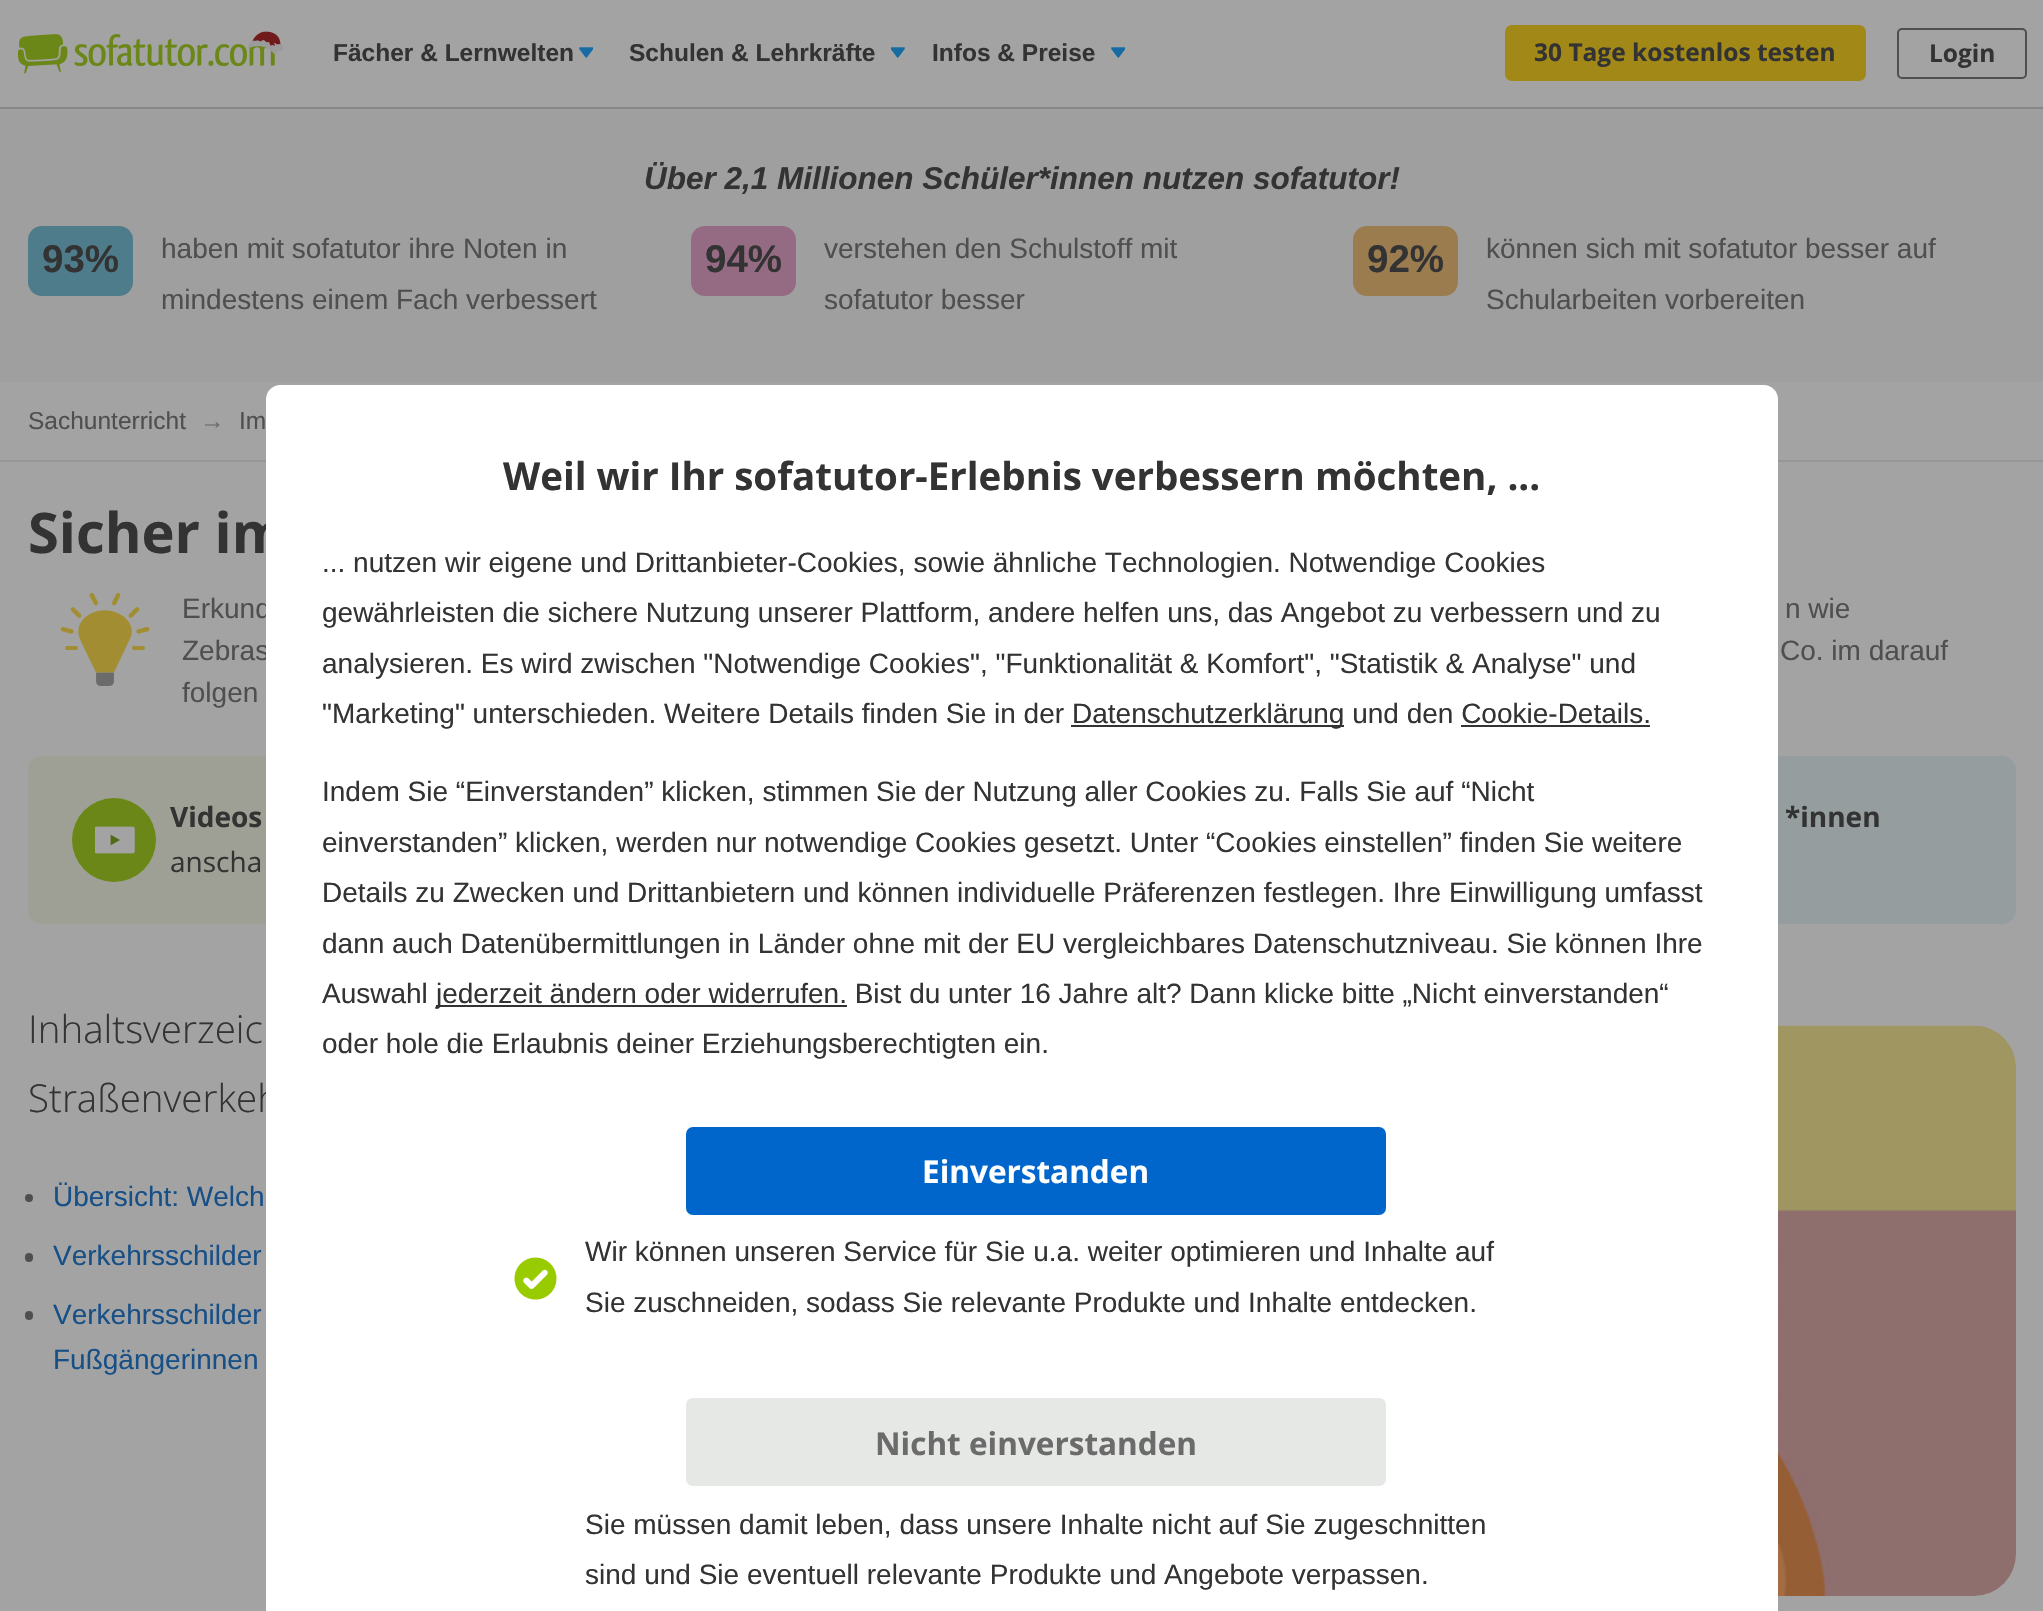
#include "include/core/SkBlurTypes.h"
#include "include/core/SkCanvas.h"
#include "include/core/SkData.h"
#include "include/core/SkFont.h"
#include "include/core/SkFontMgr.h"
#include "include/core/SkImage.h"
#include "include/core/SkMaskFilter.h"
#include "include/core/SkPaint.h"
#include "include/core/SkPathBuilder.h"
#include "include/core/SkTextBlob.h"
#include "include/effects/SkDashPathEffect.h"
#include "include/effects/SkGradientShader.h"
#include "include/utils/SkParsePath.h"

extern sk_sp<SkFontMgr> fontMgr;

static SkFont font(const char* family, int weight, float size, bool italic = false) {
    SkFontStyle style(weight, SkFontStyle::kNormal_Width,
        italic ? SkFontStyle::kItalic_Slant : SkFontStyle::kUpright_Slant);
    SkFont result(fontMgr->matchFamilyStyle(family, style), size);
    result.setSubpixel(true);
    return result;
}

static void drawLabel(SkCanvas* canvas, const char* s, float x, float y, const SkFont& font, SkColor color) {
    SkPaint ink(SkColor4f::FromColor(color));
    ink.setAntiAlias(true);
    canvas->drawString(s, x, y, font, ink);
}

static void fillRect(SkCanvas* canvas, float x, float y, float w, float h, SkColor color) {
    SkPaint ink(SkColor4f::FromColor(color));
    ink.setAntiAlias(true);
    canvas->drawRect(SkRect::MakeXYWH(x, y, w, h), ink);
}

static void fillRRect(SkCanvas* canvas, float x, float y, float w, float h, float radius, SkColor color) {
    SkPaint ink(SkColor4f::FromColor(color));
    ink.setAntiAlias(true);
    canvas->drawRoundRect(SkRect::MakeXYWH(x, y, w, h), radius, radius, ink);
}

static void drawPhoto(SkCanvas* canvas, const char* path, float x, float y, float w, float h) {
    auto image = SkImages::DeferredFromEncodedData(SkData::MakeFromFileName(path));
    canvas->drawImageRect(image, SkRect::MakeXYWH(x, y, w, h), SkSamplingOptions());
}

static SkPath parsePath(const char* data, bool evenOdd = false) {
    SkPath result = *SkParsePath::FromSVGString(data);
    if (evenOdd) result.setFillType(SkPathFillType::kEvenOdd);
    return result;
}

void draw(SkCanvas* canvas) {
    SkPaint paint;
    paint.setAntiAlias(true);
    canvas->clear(0xFFA3A3A3);
    fillRect(canvas, 0, 107, 2043, 2, 0xFF878787);
    drawPhoto(canvas, "assets/img1.png", 18, 31, 265, 43);
    SkFont font1 = font("Liberation Sans", 700, 24.5f);
    drawLabel(canvas, "Fächer & Lernwelten", 333, 61, font1, 0xFF333333);
    drawPhoto(canvas, "assets/img2.png", 579, 47, 14, 11);
    drawLabel(canvas, "Schulen & Lehrkräfte", 629, 61, font1, 0xFF333333);
    drawPhoto(canvas, "assets/img3.png", 891, 47, 14, 11);
    drawLabel(canvas, "Infos & Preise", 932, 61, font1, 0xFF333333);
    drawPhoto(canvas, "assets/img2.png", 1111, 47, 14, 11);
    fillRRect(canvas, 1505, 25, 361, 56, 7, 0xFFA18817);
    SkFont font2 = font("Open Sans", 700, 24.5f);
    drawLabel(canvas, "30 Tage kostenlos testen", 1534, 61, font2, 0xFF333333);
    paint.setStroke(true);
    paint.setStrokeWidth(2);
    paint.setColor(0xFF4F4F4F);
    canvas->drawRoundRect(SkRect::MakeXYWH(1898, 29, 128, 49), 4, 4, paint);
    drawLabel(canvas, "Login", 1929, 62, font2, 0xFF333333);
    fillRect(canvas, 0, 109, 2043, 273, 0xFF9F9F9F);
    SkFont font3 = font("Liberation Sans", 700, 31.5f, true);
    drawLabel(canvas, "Über 2,1 Millionen Schüler*innen nutzen sofatutor!", 644, 189, font3, 0xFF333333);
    fillRRect(canvas, 28, 226, 105, 70, 14, 0xFF4F7C8A);
    SkFont font4 = font("Liberation Sans", 700, 38.5f);
    drawLabel(canvas, "93%", 42, 272, font4, 0xFF333333);
    SkFont font5 = font("Liberation Sans", 400, 28);
    drawLabel(canvas, "haben mit sofatutor ihre Noten in", 161, 258, font5, 0xFF4F4F4F);
    drawLabel(canvas, "mindestens einem Fach verbessert", 161, 309, font5, 0xFF4F4F4F);
    fillRRect(canvas, 691, 226, 105, 70, 14, 0xFF956B84);
    drawLabel(canvas, "94%", 705, 272, font4, 0xFF333333);
    drawLabel(canvas, "verstehen den Schulstoff mit", 824, 258, font5, 0xFF4F4F4F);
    drawLabel(canvas, "sofatutor besser", 824, 309, font5, 0xFF4F4F4F);
    fillRRect(canvas, 1353, 226, 105, 70, 14, 0xFF9A7C4F);
    drawLabel(canvas, "92%", 1367, 272, font4, 0xFF333333);
    drawLabel(canvas, "können sich mit sofatutor besser auf", 1486, 258, font5, 0xFF4F4F4F);
    drawLabel(canvas, "Schularbeiten vorbereiten", 1486, 309, font5, 0xFF4F4F4F);
    fillRect(canvas, 0, 460, 2043, 2, 0xFF959795);
    SkFont font6 = font("Liberation Sans", 400, 24.5f);
    drawLabel(canvas, "Sachunterricht", 28, 429, font6, 0xFF4F4F4F);
    drawLabel(canvas, "→", 200, 429, font6, 0xFF6B6B6B);
    drawLabel(canvas, "Im", 239, 429, font6, 0xFF4F4F4F);
    SkFont font7 = font("Open Sans", 700, 56);
    drawLabel(canvas, "Sicher im", 28, 553, font7, 0xFF333333);
    drawPhoto(canvas, "assets/img4.png", 60, 593, 90, 93);
    drawLabel(canvas, "Erkund", 182, 618, font5, 0xFF4F4F4F);
    drawLabel(canvas, "n wie", 1785, 618, font5, 0xFF4F4F4F);
    drawLabel(canvas, "Zebras", 182, 660, font5, 0xFF4F4F4F);
    drawLabel(canvas, "Co. im darauf", 1780, 660, font5, 0xFF4F4F4F);
    drawLabel(canvas, "folgen", 182, 702, font5, 0xFF4F4F4F);
    fillRRect(canvas, 28, 756, 466, 168, 14, 0xFF9EA095);
    paint.setStroke(false);
    paint.setColor(0xFF6B8717);
    canvas->drawCircle(114, 840, 42, paint);
    drawPhoto(canvas, "assets/img5.png", 95, 826, 40, 28);
    SkFont font8 = font("Open Sans", 700, 28);
    drawLabel(canvas, "Videos", 170, 827, font8, 0xFF333333);
    SkFont font9 = font("Open Sans", 400, 28);
    drawLabel(canvas, "anscha", 170, 872, font9, 0xFF333333);
    fillRRect(canvas, 1551, 756, 465, 168, 14, 0xFF959D9F);
    drawLabel(canvas, "*innen", 1785, 827, font8, 0xFF333333);
    SkFont font10 = font("Open Sans", 300, 38.5f);
    drawLabel(canvas, "Inhaltsverzeic", 28, 1043, font10, 0xFF333333);
    drawLabel(canvas, "Straßenverkeh", 28, 1112, font10, 0xFF333333);
    paint.setColor(0xFF4F4F4F);
    canvas->drawCircle(29, 1198, 4, paint);
    drawLabel(canvas, "Übersicht: Welch", 53, 1206, font5, 0xFF174F87);
    fillRRect(canvas, 25, 1253, 8, 9, 4, 0xFF4F4F4F);
    drawLabel(canvas, "Verkehrsschilder", 53, 1265, font5, 0xFF174F87);
    fillRRect(canvas, 25, 1311, 8, 9, 4, 0xFF4F4F4F);
    drawLabel(canvas, "Verkehrsschilder", 53, 1324, font5, 0xFF174F87);
    drawLabel(canvas, "Fußgängerinnen", 53, 1369, font5, 0xFF174F87);
    drawPhoto(canvas, "assets/img6.png", 1778, 1025, 238, 571);
    paint.setColor(0xFFFFFFFF);
    canvas->drawPath(parsePath("M280 385H1764C1771.5 385 1778 391.5 1778 399V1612H266V399C266 391.5 272.5 385 280 385Z"), paint);
    SkFont font11 = font("Open Sans", 700, 38.5f);
    drawLabel(canvas, "Weil wir Ihr sofatutor-Erlebnis verbessern möchten, ...", 503, 490, font11, 0xFF333333);
    drawLabel(canvas, "... nutzen wir eigene und Drittanbieter-Cookies, sowie ähnliche Technologien. Notwendige Cookies", 322, 572, font5, 0xFF333333);
    drawLabel(canvas, "gewährleisten die sichere Nutzung unserer Plattform, andere helfen uns, das Angebot zu verbessern und zu", 322, 622, font5, 0xFF333333);
    drawLabel(canvas, "analysieren. Es wird zwischen \"Notwendige Cookies\", \"Funktionalität & Komfort\", \"Statistik & Analyse\" und", 322, 673, font5, 0xFF333333);
    drawLabel(canvas, "\"Marketing\" unterschieden. Weitere Details finden Sie in der", 322, 723, font5, 0xFF333333);
    fillRect(canvas, 1071, 725, 273, 2, 0xFF333333);
    drawLabel(canvas, "Datenschutzerklärung und den Cookie-Details.", 1072, 723, font5, 0xFF333333);
    fillRect(canvas, 1461, 725, 189, 2, 0xFF333333);
    drawLabel(canvas, "Indem Sie “Einverstanden” klicken, stimmen Sie der Nutzung aller Cookies zu. Falls Sie auf “Nicht", 322, 801, font5, 0xFF333333);
    drawLabel(canvas, "einverstanden” klicken, werden nur notwendige Cookies gesetzt. Unter “Cookies einstellen” finden Sie weitere", 322, 852, font5, 0xFF333333);
    drawLabel(canvas, "Details zu Zwecken und Drittanbietern und können individuelle Präferenzen festlegen. Ihre Einwilligung umfasst", 322, 902, font5, 0xFF333333);
    drawLabel(canvas, "dann auch Datenübermittlungen in Länder ohne mit der EU vergleichbares Datenschutzniveau. Sie können Ihre", 322, 953, font5, 0xFF333333);
    drawLabel(canvas, "Auswahl", 322, 1003, font5, 0xFF333333);
    fillRect(canvas, 436, 1005, 411, 2, 0xFF333333);
    drawLabel(canvas, "jederzeit ändern oder widerrufen. Bist du unter 16 Jahre alt? Dann klicke bitte „Nicht einverstanden“", 436, 1003, font5, 0xFF333333);
    drawLabel(canvas, "oder hole die Erlaubnis deiner Erziehungsberechtigten ein.", 322, 1053, font5, 0xFF333333);
    fillRRect(canvas, 686, 1127, 700, 88, 7, 0xFF0066CC);
    SkFont font12 = font("Open Sans", 700, 31.5f);
    drawLabel(canvas, "Einverstanden", 922, 1183, font12, 0xFFFFFFFF);
    drawPhoto(canvas, "assets/img7.png", 514, 1257, 43, 43);
    drawLabel(canvas, "Wir können unseren Service für Sie u.a. weiter optimieren und Inhalte auf", 585, 1261, font5, 0xFF333333);
    drawLabel(canvas, "Sie zuschneiden, sodass Sie relevante Produkte und Inhalte entdecken.", 585, 1312, font5, 0xFF333333);
    fillRRect(canvas, 686, 1398, 700, 88, 7, 0xFFE6E8E5);
    drawLabel(canvas, "Nicht einverstanden", 875, 1455, font12, 0xFF6B6B6B);
    drawLabel(canvas, "Sie müssen damit leben, dass unsere Inhalte nicht auf Sie zugeschnitten", 585, 1534, font5, 0xFF333333);
    drawLabel(canvas, "sind und Sie eventuell relevante Produkte und Angebote verpassen.", 585, 1584, font5, 0xFF333333);
}
